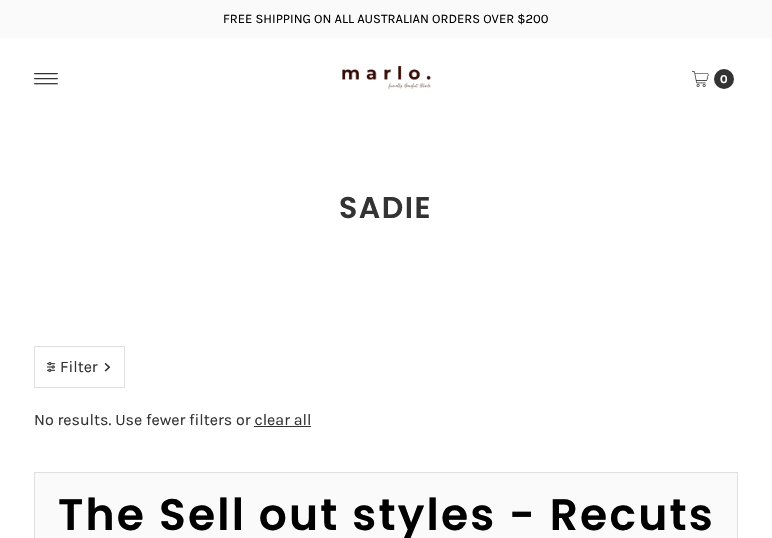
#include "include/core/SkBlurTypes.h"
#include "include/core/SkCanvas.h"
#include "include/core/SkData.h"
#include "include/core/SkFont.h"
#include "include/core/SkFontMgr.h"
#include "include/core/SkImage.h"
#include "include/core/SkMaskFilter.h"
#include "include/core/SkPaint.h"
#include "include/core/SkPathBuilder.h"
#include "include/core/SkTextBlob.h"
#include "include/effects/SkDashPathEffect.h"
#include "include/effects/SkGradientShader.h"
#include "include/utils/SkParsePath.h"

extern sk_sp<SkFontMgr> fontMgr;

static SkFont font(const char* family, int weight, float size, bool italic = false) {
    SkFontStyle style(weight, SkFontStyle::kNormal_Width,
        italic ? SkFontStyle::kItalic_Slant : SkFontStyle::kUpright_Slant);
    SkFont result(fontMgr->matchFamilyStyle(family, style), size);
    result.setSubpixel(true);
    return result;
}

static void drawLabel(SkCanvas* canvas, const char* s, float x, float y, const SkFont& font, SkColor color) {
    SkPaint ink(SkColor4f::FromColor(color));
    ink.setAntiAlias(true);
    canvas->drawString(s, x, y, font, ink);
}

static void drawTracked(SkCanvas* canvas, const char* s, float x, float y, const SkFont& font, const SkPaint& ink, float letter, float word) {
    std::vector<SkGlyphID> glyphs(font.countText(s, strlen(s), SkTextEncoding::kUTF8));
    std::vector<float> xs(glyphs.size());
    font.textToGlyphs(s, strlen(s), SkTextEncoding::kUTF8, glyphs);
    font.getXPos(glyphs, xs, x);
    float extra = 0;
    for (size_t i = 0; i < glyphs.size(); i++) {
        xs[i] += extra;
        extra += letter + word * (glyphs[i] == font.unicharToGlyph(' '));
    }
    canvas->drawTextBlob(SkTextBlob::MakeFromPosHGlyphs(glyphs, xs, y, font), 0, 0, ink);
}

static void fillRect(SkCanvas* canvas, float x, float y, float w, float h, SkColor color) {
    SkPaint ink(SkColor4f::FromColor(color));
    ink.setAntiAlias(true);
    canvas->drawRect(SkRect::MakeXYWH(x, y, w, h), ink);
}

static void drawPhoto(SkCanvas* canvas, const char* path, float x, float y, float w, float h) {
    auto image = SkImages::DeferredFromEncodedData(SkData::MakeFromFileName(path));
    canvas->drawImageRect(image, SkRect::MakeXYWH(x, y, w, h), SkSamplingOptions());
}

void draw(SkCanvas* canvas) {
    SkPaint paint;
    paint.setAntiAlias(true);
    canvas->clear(0xFFFFFFFF);
    fillRect(canvas, 0, 0, 772, 38, 0xFFFAFAFA);
    SkFont font1 = font("Karla", 400, 13);
    drawLabel(canvas, "FREE SHIPPING ON ALL AUSTRALIAN ORDERS OVER $200", 223, 23, font1, 0xFF000000);
    drawPhoto(canvas, "assets/img1.png", 34, 73, 24, 12);
    drawPhoto(canvas, "assets/img2.png", 342, 66, 89, 23);
    drawPhoto(canvas, "assets/img3.png", 692, 71, 17, 16);
    paint.setColor(0xFF333333);
    canvas->drawCircle(724, 79, 10, paint);
    SkFont font2 = font("Karla", 700, 12);
    drawLabel(canvas, "0", 720, 83, font2, 0xFFFFFFFF);
    SkFont font3 = font("Poppins", 600, 30);
    drawTracked(canvas, "SADIE", 339, 218, font3, paint, 1.5f, 0);
    paint.setStroke(true);
    paint.setStrokeWidth(1);
    paint.setColor(0xFFDFDFDF);
    canvas->drawRect(SkRect::MakeXYWH(34.5f, 346.5f, 90, 41), paint);
    drawPhoto(canvas, "assets/img4.png", 47, 362, 8, 10);
    SkFont font4 = font("Karla", 400, 16);
    drawLabel(canvas, "Filter", 60, 372, font4, 0xFF333333);
    drawPhoto(canvas, "assets/img5.png", 104, 362, 7, 10);
    drawLabel(canvas, "No results. Use fewer filters or clear all", 34, 425, font4, 0xFF333333);
    fillRect(canvas, 254, 426, 57, 1, 0xFF333333);
    paint.setStroke(false);
    paint.setColor(0xFFFAFAFA);
    canvas->drawRect(SkRect::MakeXYWH(34.5f, 472.5f, 703, 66), paint);
    paint.setStroke(true);
    paint.setColor(0xFFDFDFDF);
    canvas->drawRect(SkRect::MakeXYWH(34.5f, 472.5f, 703, 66), paint);
    SkFont font5 = font("Poppins", 600, 44);
    paint.setStroke(false);
    paint.setColor(0xFF000000);
    drawTracked(canvas, "The Sell out styles - Recuts", 58, 530, font5, paint, 2.2f, 0);
}
